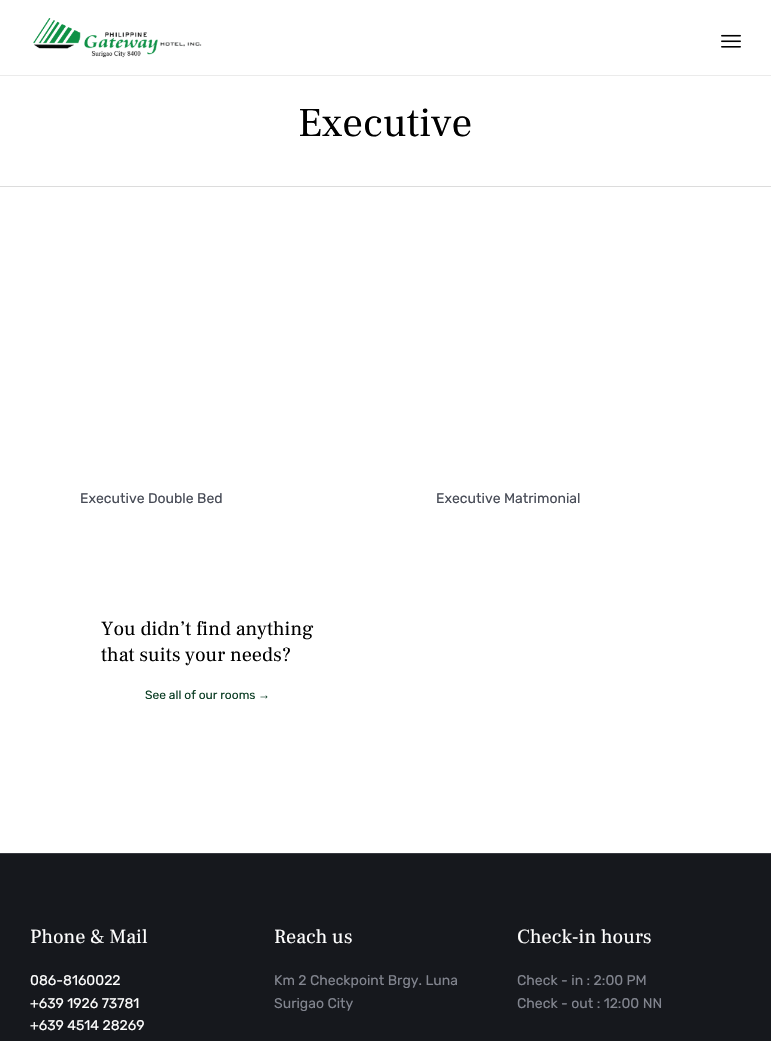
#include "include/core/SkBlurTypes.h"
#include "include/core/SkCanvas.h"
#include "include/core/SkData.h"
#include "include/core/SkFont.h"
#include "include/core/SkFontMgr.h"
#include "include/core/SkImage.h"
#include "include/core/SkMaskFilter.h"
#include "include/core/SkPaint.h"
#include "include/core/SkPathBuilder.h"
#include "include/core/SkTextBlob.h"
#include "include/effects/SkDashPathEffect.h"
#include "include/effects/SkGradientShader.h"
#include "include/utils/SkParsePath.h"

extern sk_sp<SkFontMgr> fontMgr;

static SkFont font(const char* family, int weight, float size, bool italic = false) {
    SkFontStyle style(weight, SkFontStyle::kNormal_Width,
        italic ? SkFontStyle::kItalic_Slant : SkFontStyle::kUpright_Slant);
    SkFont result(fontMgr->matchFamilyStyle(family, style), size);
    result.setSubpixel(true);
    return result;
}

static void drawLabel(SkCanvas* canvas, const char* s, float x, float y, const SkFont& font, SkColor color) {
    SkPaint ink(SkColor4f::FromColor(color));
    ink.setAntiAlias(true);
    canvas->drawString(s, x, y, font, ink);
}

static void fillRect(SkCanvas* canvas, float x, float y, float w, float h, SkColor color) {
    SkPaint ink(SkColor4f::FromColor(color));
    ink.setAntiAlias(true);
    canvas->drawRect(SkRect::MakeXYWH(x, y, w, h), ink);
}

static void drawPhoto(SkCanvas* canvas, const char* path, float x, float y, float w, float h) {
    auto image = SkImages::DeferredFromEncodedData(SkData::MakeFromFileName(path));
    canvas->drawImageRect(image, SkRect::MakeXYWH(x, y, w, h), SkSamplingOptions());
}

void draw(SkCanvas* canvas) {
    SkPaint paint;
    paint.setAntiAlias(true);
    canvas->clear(0xFFFFFFFF);
    fillRect(canvas, 0, 75, 771, 1, 0xFFEBEBEB);
    drawPhoto(canvas, "assets/img1.png", 33, 18, 169, 40);
    drawPhoto(canvas, "assets/img2.png", 721, 34, 20, 14);
    fillRect(canvas, 0, 186, 771, 1, 0xFFDCDCDC);
    SkFont font1 = font("Frank Ruhl Libre", 400, 41);
    drawLabel(canvas, "Executive", 298, 136, font1, 0xFF000000);
    SkFont font2 = font("Rubik", 400, 14);
    drawLabel(canvas, "Executive Double Bed", 80, 503, font2, 0xFF474B56);
    drawLabel(canvas, "Executive Matrimonial", 436, 503, font2, 0xFF474B56);
    SkFont font3 = font("Frank Ruhl Libre", 400, 20);
    drawLabel(canvas, "You didn’t find anything", 101, 635, font3, 0xFF000000);
    drawLabel(canvas, "that suits your needs?", 101, 661, font3, 0xFF000000);
    SkFont font4 = font("Rubik", 400, 12);
    drawLabel(canvas, "See all of our rooms", 145, 699, font4, 0xFF0B3D24);
    SkFont font5 = font("Liberation Serif", 400, 12);
    drawLabel(canvas, "→", 258, 699, font5, 0xFF0B3D24);
    fillRect(canvas, 0, 854, 771, 187, 0xFF16181D);
    fillRect(canvas, 0, 853, 771, 1, 0xFF37393F);
    drawLabel(canvas, "Phone & Mail", 30, 943, font3, 0xFFFFFFFF);
    drawLabel(canvas, "086-8160022", 30, 985, font2, 0xFFFFFFFF);
    drawLabel(canvas, "+639 1926 73781", 30, 1008, font2, 0xFFFFFFFF);
    drawLabel(canvas, "+639 4514 28269", 30, 1030, font2, 0xFFFFFFFF);
    drawLabel(canvas, "Reach us", 274, 943, font3, 0xFFFFFFFF);
    drawLabel(canvas, "Km 2 Checkpoint Brgy. Luna", 274, 985, font2, 0xFF82858F);
    drawLabel(canvas, "Surigao City", 274, 1008, font2, 0xFF82858F);
    drawLabel(canvas, "Check-in hours", 517, 943, font3, 0xFFFFFFFF);
    drawLabel(canvas, "Check - in : 2:00 PM", 517, 985, font2, 0xFF82858F);
    drawLabel(canvas, "Check - out : 12:00 NN", 517, 1008, font2, 0xFF82858F);
}
